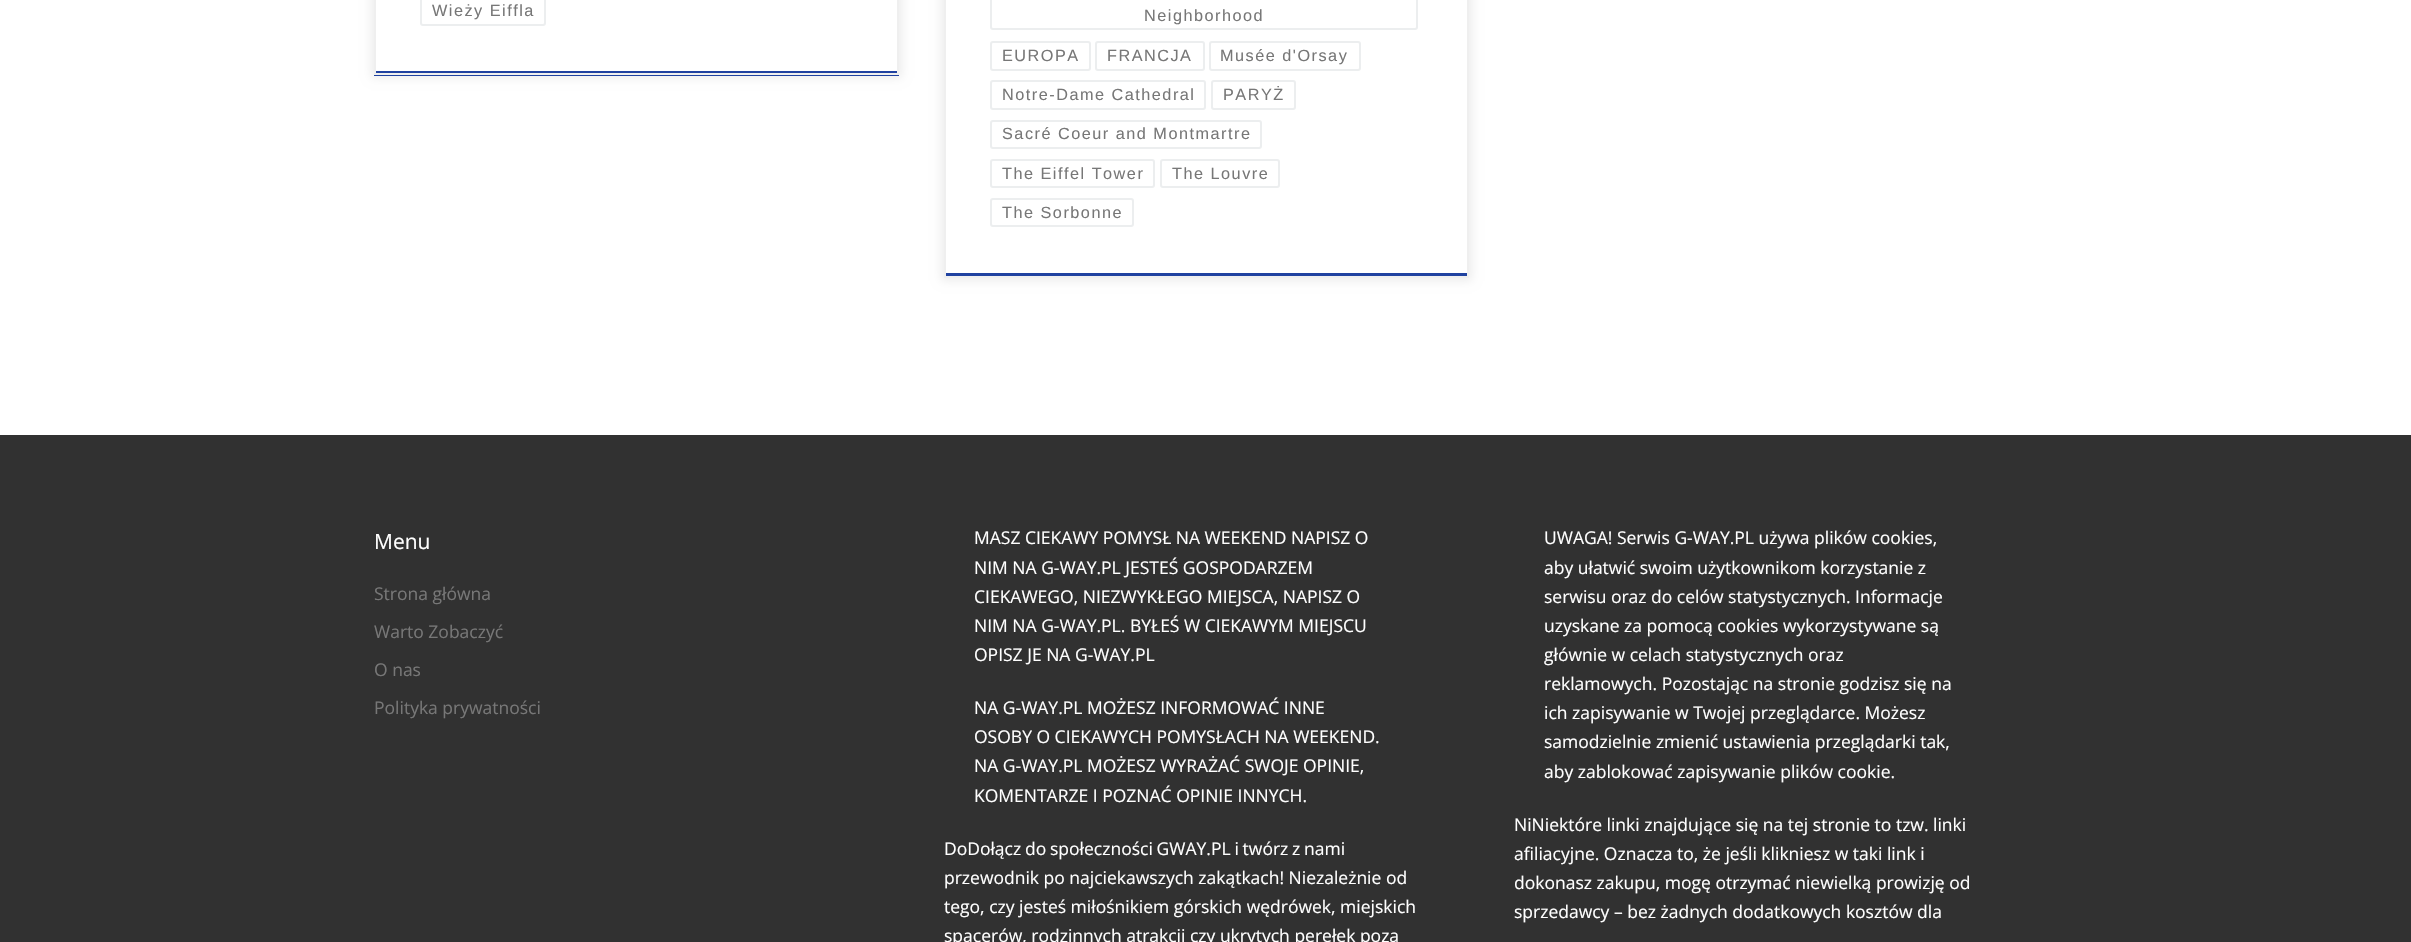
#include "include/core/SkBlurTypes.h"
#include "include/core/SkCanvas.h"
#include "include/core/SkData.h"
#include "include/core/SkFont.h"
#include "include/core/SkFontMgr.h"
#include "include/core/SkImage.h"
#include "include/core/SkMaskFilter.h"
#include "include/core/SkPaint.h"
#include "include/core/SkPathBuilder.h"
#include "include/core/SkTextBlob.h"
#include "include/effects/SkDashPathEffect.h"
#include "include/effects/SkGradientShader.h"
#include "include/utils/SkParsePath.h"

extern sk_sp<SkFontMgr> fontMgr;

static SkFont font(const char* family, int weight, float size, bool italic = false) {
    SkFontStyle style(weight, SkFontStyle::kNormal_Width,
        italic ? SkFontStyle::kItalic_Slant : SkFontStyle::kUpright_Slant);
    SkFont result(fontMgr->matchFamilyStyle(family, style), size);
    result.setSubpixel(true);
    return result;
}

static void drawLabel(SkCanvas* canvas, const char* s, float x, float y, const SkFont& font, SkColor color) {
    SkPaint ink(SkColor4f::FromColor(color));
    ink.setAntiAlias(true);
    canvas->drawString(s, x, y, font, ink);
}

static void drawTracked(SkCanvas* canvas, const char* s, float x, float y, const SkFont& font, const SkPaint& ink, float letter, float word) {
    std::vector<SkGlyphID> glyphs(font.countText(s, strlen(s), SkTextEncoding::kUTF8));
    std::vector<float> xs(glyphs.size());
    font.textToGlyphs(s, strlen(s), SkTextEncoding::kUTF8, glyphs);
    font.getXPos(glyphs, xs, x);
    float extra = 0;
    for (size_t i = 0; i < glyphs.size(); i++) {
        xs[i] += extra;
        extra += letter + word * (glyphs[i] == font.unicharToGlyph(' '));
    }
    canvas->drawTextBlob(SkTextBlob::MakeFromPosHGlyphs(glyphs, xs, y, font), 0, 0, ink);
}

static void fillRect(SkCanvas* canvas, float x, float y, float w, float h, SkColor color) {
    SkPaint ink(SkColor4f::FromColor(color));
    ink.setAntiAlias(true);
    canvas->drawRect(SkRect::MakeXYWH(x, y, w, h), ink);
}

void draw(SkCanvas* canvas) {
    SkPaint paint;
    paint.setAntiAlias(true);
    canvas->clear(0xFFFFFFFF);
    paint.setColor(0x12000000);
    paint.setMaskFilter(SkMaskFilter::MakeBlur(kNormal_SkBlurStyle, 4.5f));
    canvas->drawRect(SkRect::MakeXYWH(371, -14, 531, 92), paint);
    paint.setMaskFilter(nullptr);
    fillRect(canvas, 376, 0, 521, 71, 0xFFFFFFFF);
    fillRect(canvas, 374, 71, 525, 5, 0xFF2042A0);
    paint.setStroke(true);
    paint.setStrokeWidth(2);
    paint.setColor(0xFFECEEEF);
    canvas->drawRoundRect(SkRect::MakeXYWH(421, -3, 124, 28), 2, 2, paint);
    paint.setColor(0xFFEFEFEF);
    canvas->drawRect(SkRect::MakeXYWH(375, -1, 523, 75), paint);
    SkFont font1 = font("Liberation Sans", 400, 16.25f);
    paint.setStroke(false);
    paint.setColor(0xFF777777);
    drawTracked(canvas, "Wieży Eiffla", 432, 16, font1, paint, 1.5f, 0);
    paint.setColor(0x12000000);
    paint.setMaskFilter(SkMaskFilter::MakeBlur(kNormal_SkBlurStyle, 4.5f));
    canvas->drawRect(SkRect::MakeXYWH(941, -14, 531, 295), paint);
    paint.setMaskFilter(nullptr);
    fillRect(canvas, 946, 0, 521, 273, 0xFFFFFFFF);
    fillRect(canvas, 944, 273, 525, 3, 0xFF2042A0);
    paint.setStroke(true);
    paint.setColor(0xFFECEEEF);
    canvas->drawRoundRect(SkRect::MakeXYWH(991, -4, 426, 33), 2, 2, paint);
    canvas->drawRoundRect(SkRect::MakeXYWH(991, 42, 99, 28), 2, 2, paint);
    canvas->drawRoundRect(SkRect::MakeXYWH(1096, 42, 108, 28), 2, 2, paint);
    canvas->drawRoundRect(SkRect::MakeXYWH(1210, 42, 150, 28), 2, 2, paint);
    canvas->drawRoundRect(SkRect::MakeXYWH(991, 81, 214, 28), 2, 2, paint);
    canvas->drawRoundRect(SkRect::MakeXYWH(1212, 81, 83, 28), 2, 2, paint);
    canvas->drawRoundRect(SkRect::MakeXYWH(991, 121, 270, 27), 2, 2, paint);
    canvas->drawRoundRect(SkRect::MakeXYWH(991, 160, 163, 27), 2, 2, paint);
    canvas->drawRoundRect(SkRect::MakeXYWH(1161, 160, 118, 27), 2, 2, paint);
    canvas->drawRoundRect(SkRect::MakeXYWH(991, 199, 142, 27), 2, 2, paint);
    paint.setColor(0xFFEFEFEF);
    canvas->drawRect(SkRect::MakeXYWH(945, -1, 523, 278), paint);
    paint.setStroke(false);
    paint.setColor(0xFF777777);
    drawTracked(canvas, "Neighborhood", 1144, 21, font1, paint, 1.5f, 0);
    drawTracked(canvas, "EUROPA", 1002, 61, font1, paint, 1.5f, 0);
    drawTracked(canvas, "FRANCJA", 1107, 61, font1, paint, 1.5f, 0);
    drawTracked(canvas, "Musée d'Orsay", 1220, 61, font1, paint, 1.5f, 0);
    drawTracked(canvas, "Notre-Dame Cathedral", 1002, 100, font1, paint, 1.5f, 0);
    drawTracked(canvas, "PARYŻ", 1223, 100, font1, paint, 1.5f, 0);
    drawTracked(canvas, "Sacré Coeur and Montmartre", 1002, 139, font1, paint, 1.5f, 0);
    drawTracked(canvas, "The Eiffel Tower", 1002, 179, font1, paint, 1.5f, 0);
    drawTracked(canvas, "The Louvre", 1172, 179, font1, paint, 1.5f, 0);
    drawTracked(canvas, "The Sorbonne", 1002, 218, font1, paint, 1.5f, 0);
    fillRect(canvas, 0, 435, 2411, 507, 0xFF313131);
    SkFont font2 = font("Open Sans", 400, 21);
    drawLabel(canvas, "Menu", 374, 549, font2, 0xFFFFFFFF);
    SkFont font3 = font("Open Sans", 400, 17.5f);
    drawLabel(canvas, "Strona główna", 374, 600, font3, 0xFF777777);
    drawLabel(canvas, "Warto Zobaczyć", 374, 638, font3, 0xFF777777);
    drawLabel(canvas, "O nas", 374, 676, font3, 0xFF777777);
    drawLabel(canvas, "Polityka prywatności", 374, 714, font3, 0xFF777777);
    drawLabel(canvas, "MASZ CIEKAWY POMYSŁ NA WEEKEND NAPISZ O", 974, 544, font3, 0xFFFFFFFF);
    drawLabel(canvas, "NIM NA G-WAY.PL JESTEŚ GOSPODARZEM", 974, 574, font3, 0xFFFFFFFF);
    drawLabel(canvas, "CIEKAWEGO, NIEZWYKŁEGO MIEJSCA, NAPISZ O", 974, 603, font3, 0xFFFFFFFF);
    drawLabel(canvas, "NIM NA G-WAY.PL. BYŁEŚ W CIEKAWYM MIEJSCU", 974, 632, font3, 0xFFFFFFFF);
    drawLabel(canvas, "OPISZ JE NA G-WAY.PL", 974, 661, font3, 0xFFFFFFFF);
    drawLabel(canvas, "NA G-WAY.PL MOŻESZ INFORMOWAĆ INNE", 974, 714, font3, 0xFFFFFFFF);
    drawLabel(canvas, "OSOBY O CIEKAWYCH POMYSŁACH NA WEEKEND.", 974, 743, font3, 0xFFFFFFFF);
    drawLabel(canvas, "NA G-WAY.PL MOŻESZ WYRAŻAĆ SWOJE OPINIE,", 974, 772, font3, 0xFFFFFFFF);
    drawLabel(canvas, "KOMENTARZE I POZNAĆ OPINIE INNYCH.", 974, 802, font3, 0xFFFFFFFF);
    paint.setColor(0xFFFFFFFF);
    drawTracked(canvas, "DoDołącz do społeczności G‑WAY.PL i twórz z nami", 944, 855, font3, paint, 0, -0.75f);
    drawLabel(canvas, "przewodnik po najciekawszych zakątkach! Niezależnie od", 944, 884, font3, 0xFFFFFFFF);
    drawLabel(canvas, "tego, czy jesteś miłośnikiem górskich wędrówek, miejskich", 944, 913, font3, 0xFFFFFFFF);
    drawLabel(canvas, "spacerów, rodzinnych atrakcji czy ukrytych perełek poza", 944, 942, font3, 0xFFFFFFFF);
    drawLabel(canvas, "UWAGA! Serwis G-WAY.PL używa plików cookies,", 1544, 544, font3, 0xFFFFFFFF);
    drawLabel(canvas, "aby ułatwić swoim użytkownikom korzystanie z", 1544, 574, font3, 0xFFFFFFFF);
    drawLabel(canvas, "serwisu oraz do celów statystycznych. Informacje", 1544, 603, font3, 0xFFFFFFFF);
    drawLabel(canvas, "uzyskane za pomocą cookies wykorzystywane są", 1544, 632, font3, 0xFFFFFFFF);
    drawLabel(canvas, "głównie w celach statystycznych oraz", 1544, 661, font3, 0xFFFFFFFF);
    drawLabel(canvas, "reklamowych. Pozostając na stronie godzisz się na", 1544, 690, font3, 0xFFFFFFFF);
    drawLabel(canvas, "ich zapisywanie w Twojej przeglądarce. Możesz", 1544, 719, font3, 0xFFFFFFFF);
    drawLabel(canvas, "samodzielnie zmienić ustawienia przeglądarki tak,", 1544, 748, font3, 0xFFFFFFFF);
    drawLabel(canvas, "aby zablokować zapisywanie plików cookie.", 1544, 778, font3, 0xFFFFFFFF);
    drawLabel(canvas, "NiNiektóre linki znajdujące się na tej stronie to tzw. linki", 1514, 831, font3, 0xFFFFFFFF);
    drawLabel(canvas, "afiliacyjne. Oznacza to, że jeśli klikniesz w taki link i", 1514, 860, font3, 0xFFFFFFFF);
    drawLabel(canvas, "dokonasz zakupu, mogę otrzymać niewielką prowizję od", 1514, 889, font3, 0xFFFFFFFF);
    drawLabel(canvas, "sprzedawcy – bez żadnych dodatkowych kosztów dla", 1514, 918, font3, 0xFFFFFFFF);
}
